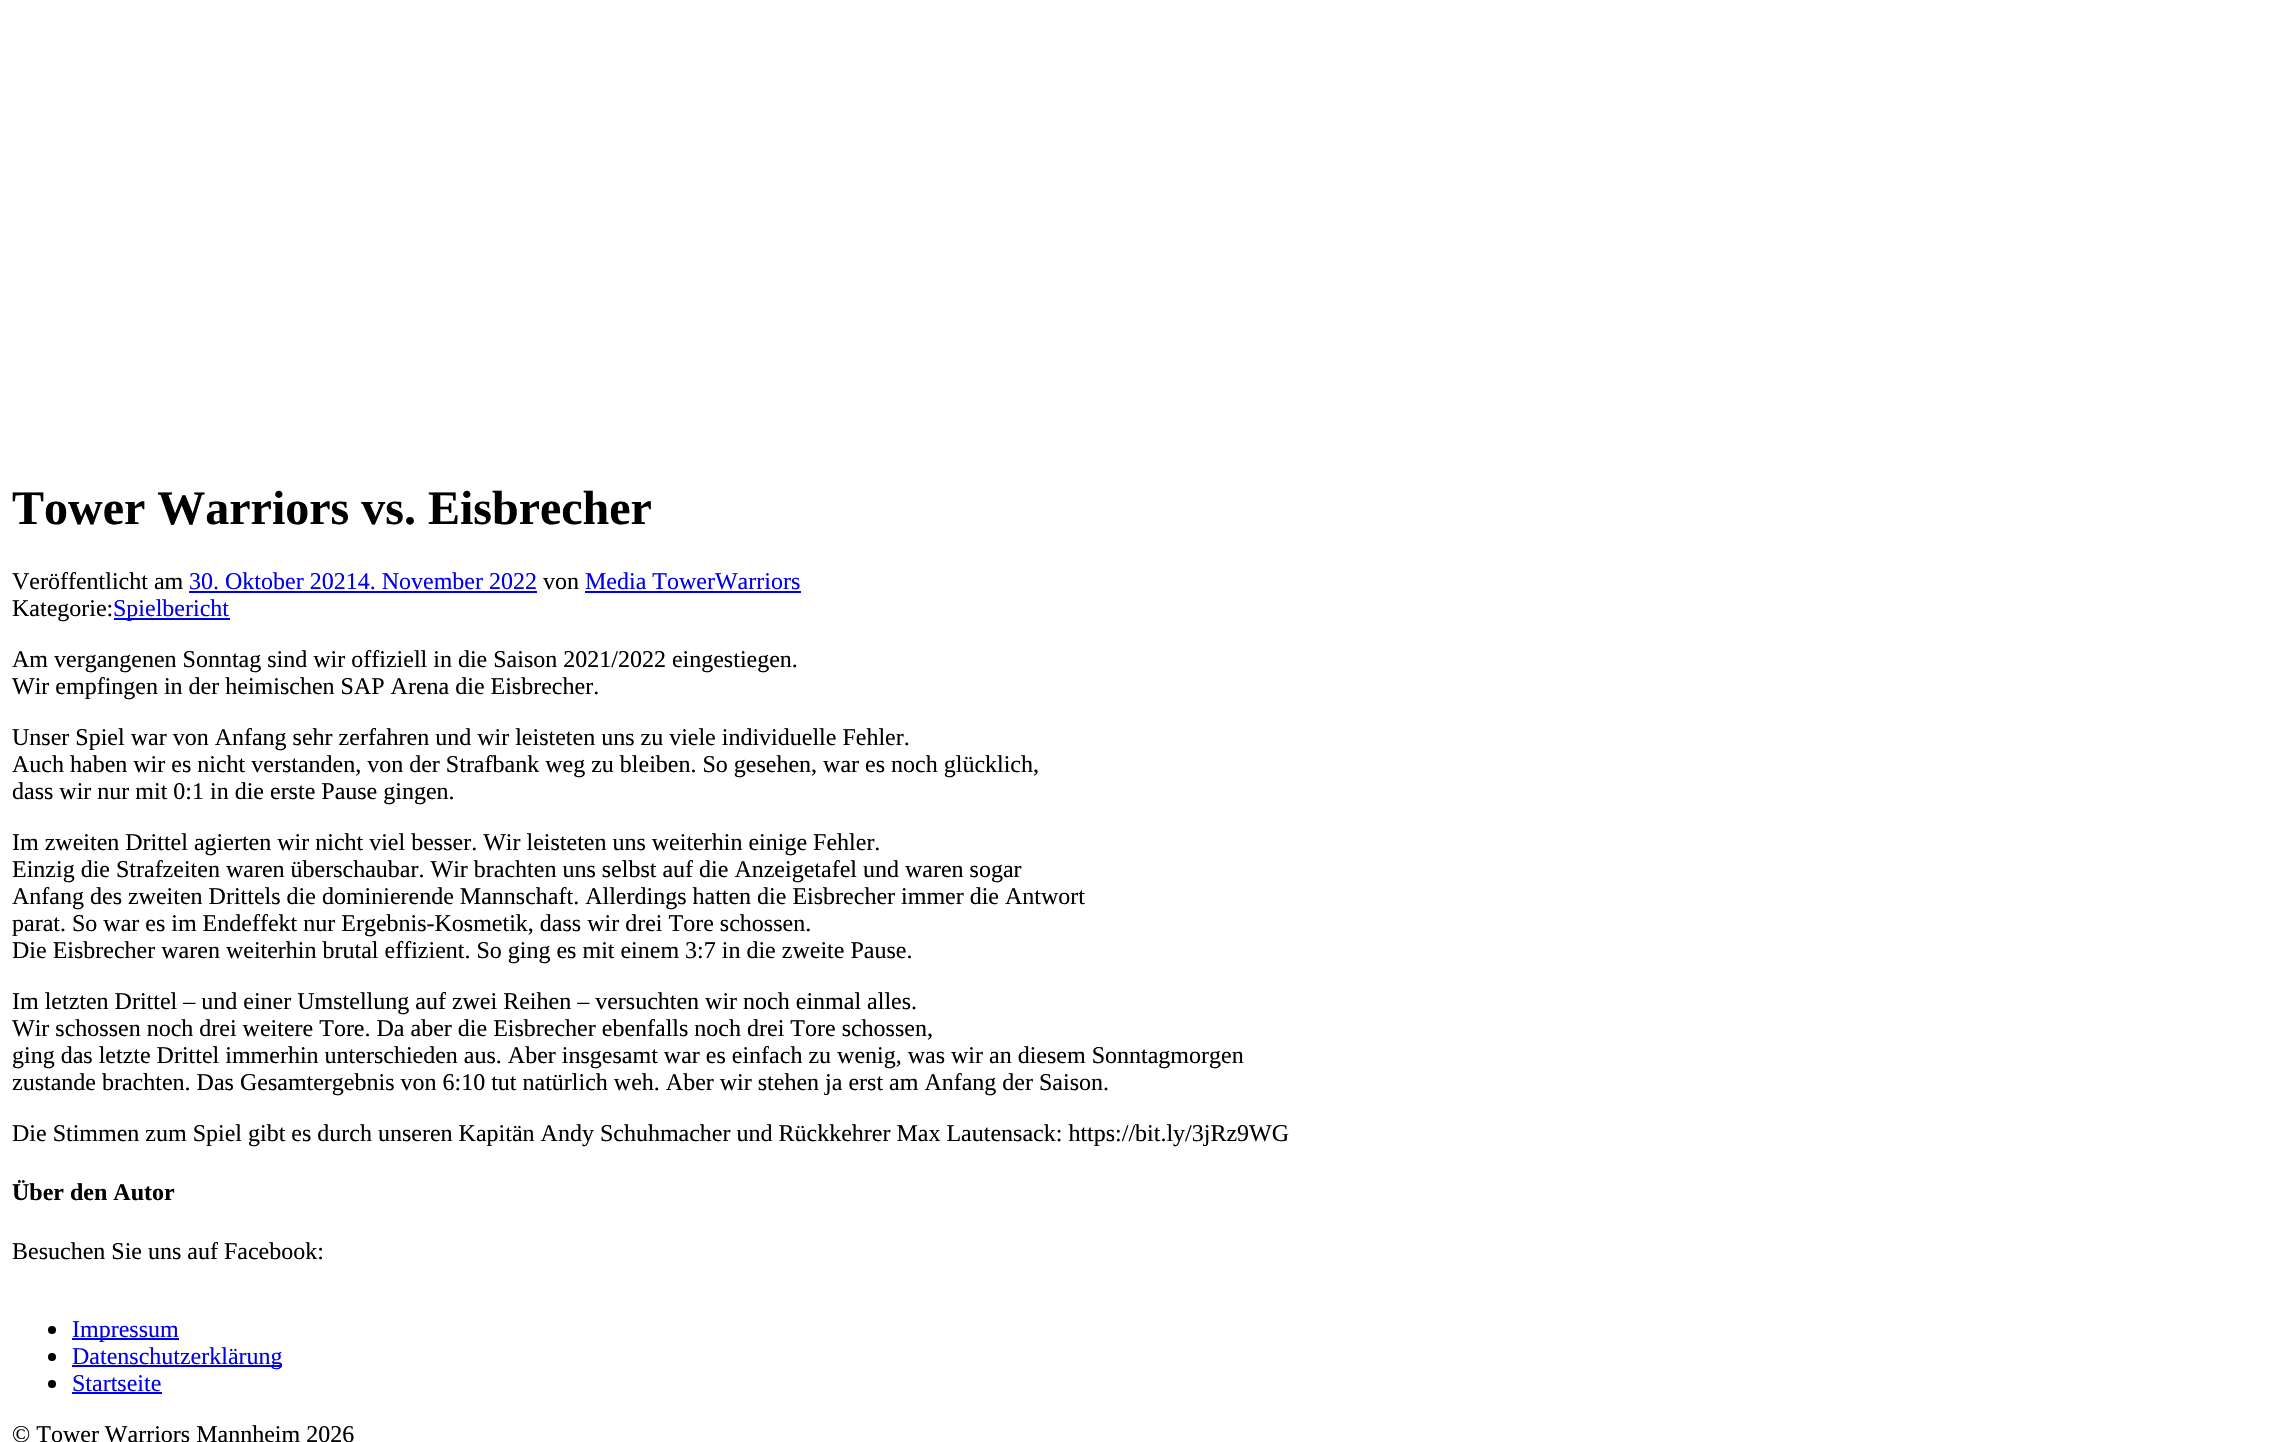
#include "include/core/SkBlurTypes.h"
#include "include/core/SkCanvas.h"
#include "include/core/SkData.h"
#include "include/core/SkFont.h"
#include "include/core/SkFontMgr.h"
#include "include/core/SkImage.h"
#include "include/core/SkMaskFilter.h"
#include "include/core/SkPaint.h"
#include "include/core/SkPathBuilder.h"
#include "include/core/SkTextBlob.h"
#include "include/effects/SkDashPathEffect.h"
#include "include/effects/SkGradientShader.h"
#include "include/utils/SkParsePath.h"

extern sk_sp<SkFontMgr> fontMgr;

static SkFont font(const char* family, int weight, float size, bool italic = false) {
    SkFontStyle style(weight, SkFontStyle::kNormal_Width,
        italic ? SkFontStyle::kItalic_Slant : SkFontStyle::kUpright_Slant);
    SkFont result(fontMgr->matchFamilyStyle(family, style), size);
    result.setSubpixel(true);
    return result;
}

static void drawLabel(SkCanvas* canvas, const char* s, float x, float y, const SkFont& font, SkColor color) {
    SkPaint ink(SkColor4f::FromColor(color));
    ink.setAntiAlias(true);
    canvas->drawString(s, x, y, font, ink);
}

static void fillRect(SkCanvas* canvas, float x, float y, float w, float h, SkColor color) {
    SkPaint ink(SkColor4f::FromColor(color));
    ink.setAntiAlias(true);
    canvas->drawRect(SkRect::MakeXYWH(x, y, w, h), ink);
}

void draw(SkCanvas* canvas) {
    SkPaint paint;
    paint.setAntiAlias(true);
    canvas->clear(0xFFFFFFFF);
    SkFont font1 = font("Liberation Serif", 700, 48);
    drawLabel(canvas, "Tower Warriors vs. Eisbrecher", 12, 524, font1, 0xFF000000);
    SkFont font2 = font("Liberation Serif", 400, 24);
    drawLabel(canvas, "Veröffentlicht am", 12, 589, font2, 0xFF000000);
    drawLabel(canvas, "30. Oktober 20214. November 2022", 189, 589, font2, 0xFF0000EE);
    fillRect(canvas, 189, 591, 348, 2, 0xFF0000EE);
    drawLabel(canvas, "von", 543, 589, font2, 0xFF000000);
    drawLabel(canvas, "Media TowerWarriors", 585, 589, font2, 0xFF0000EE);
    fillRect(canvas, 585, 591, 216, 2, 0xFF0000EE);
    drawLabel(canvas, "Kategorie:", 12, 616, font2, 0xFF000000);
    fillRect(canvas, 114, 618, 116, 2, 0xFF0000EE);
    drawLabel(canvas, "Spielbericht", 113, 616, font2, 0xFF0000EE);
    drawLabel(canvas, "Am vergangenen Sonntag sind wir offiziell in die Saison 2021/2022 eingestiegen.", 12, 667, font2, 0xFF000000);
    drawLabel(canvas, "Wir empfingen in der heimischen SAP Arena die Eisbrecher.", 12, 694, font2, 0xFF000000);
    drawLabel(canvas, "Unser Spiel war von Anfang sehr zerfahren und wir leisteten uns zu viele individuelle Fehler.", 12, 745, font2, 0xFF000000);
    drawLabel(canvas, "Auch haben wir es nicht verstanden, von der Strafbank weg zu bleiben. So gesehen, war es noch glücklich,", 12, 772, font2, 0xFF000000);
    drawLabel(canvas, "dass wir nur mit 0:1 in die erste Pause gingen.", 12, 799, font2, 0xFF000000);
    drawLabel(canvas, "Im zweiten Drittel agierten wir nicht viel besser. Wir leisteten uns weiterhin einige Fehler.", 12, 850, font2, 0xFF000000);
    drawLabel(canvas, "Einzig die Strafzeiten waren überschaubar. Wir brachten uns selbst auf die Anzeigetafel und waren sogar", 12, 877, font2, 0xFF000000);
    drawLabel(canvas, "Anfang des zweiten Drittels die dominierende Mannschaft. Allerdings hatten die Eisbrecher immer die Antwort", 12, 904, font2, 0xFF000000);
    drawLabel(canvas, "parat. So war es im Endeffekt nur Ergebnis-Kosmetik, dass wir drei Tore schossen.", 12, 931, font2, 0xFF000000);
    drawLabel(canvas, "Die Eisbrecher waren weiterhin brutal effizient. So ging es mit einem 3:7 in die zweite Pause.", 12, 958, font2, 0xFF000000);
    drawLabel(canvas, "Im letzten Drittel – und einer Umstellung auf zwei Reihen – versuchten wir noch einmal alles.", 12, 1009, font2, 0xFF000000);
    drawLabel(canvas, "Wir schossen noch drei weitere Tore. Da aber die Eisbrecher ebenfalls noch drei Tore schossen,", 12, 1036, font2, 0xFF000000);
    drawLabel(canvas, "ging das letzte Drittel immerhin unterschieden aus. Aber insgesamt war es einfach zu wenig, was wir an diesem Sonntagmorgen", 12, 1063, font2, 0xFF000000);
    drawLabel(canvas, "zustande brachten. Das Gesamtergebnis von 6:10 tut natürlich weh. Aber wir stehen ja erst am Anfang der Saison.", 12, 1090, font2, 0xFF000000);
    drawLabel(canvas, "Die Stimmen zum Spiel gibt es durch unseren Kapitän Andy Schuhmacher und Rückkehrer Max Lautensack: https://bit.ly/3jRz9WG", 12, 1141, font2, 0xFF000000);
    SkFont font3 = font("Liberation Serif", 700, 24);
    drawLabel(canvas, "Über den Autor", 12, 1200, font3, 0xFF000000);
    drawLabel(canvas, "Besuchen Sie uns auf Facebook:", 12, 1259, font2, 0xFF000000);
    paint.setColor(0xFF000000);
    canvas->drawCircle(52, 1330, 4, paint);
    fillRect(canvas, 72, 1338, 107, 2, 0xFF0000EE);
    drawLabel(canvas, "Impressum", 72, 1337, font2, 0xFF0000EE);
    canvas->drawCircle(52, 1357, 4, paint);
    fillRect(canvas, 72, 1365, 210, 2, 0xFF0000EE);
    drawLabel(canvas, "Datenschutzerklärung", 72, 1364, font2, 0xFF0000EE);
    canvas->drawCircle(52, 1384, 4, paint);
    drawLabel(canvas, "Startseite", 72, 1391, font2, 0xFF0000EE);
    fillRect(canvas, 72, 1392, 90, 2, 0xFF0000EE);
    drawLabel(canvas, "© Tower Warriors Mannheim 2026", 12, 1442, font2, 0xFF000000);
}
